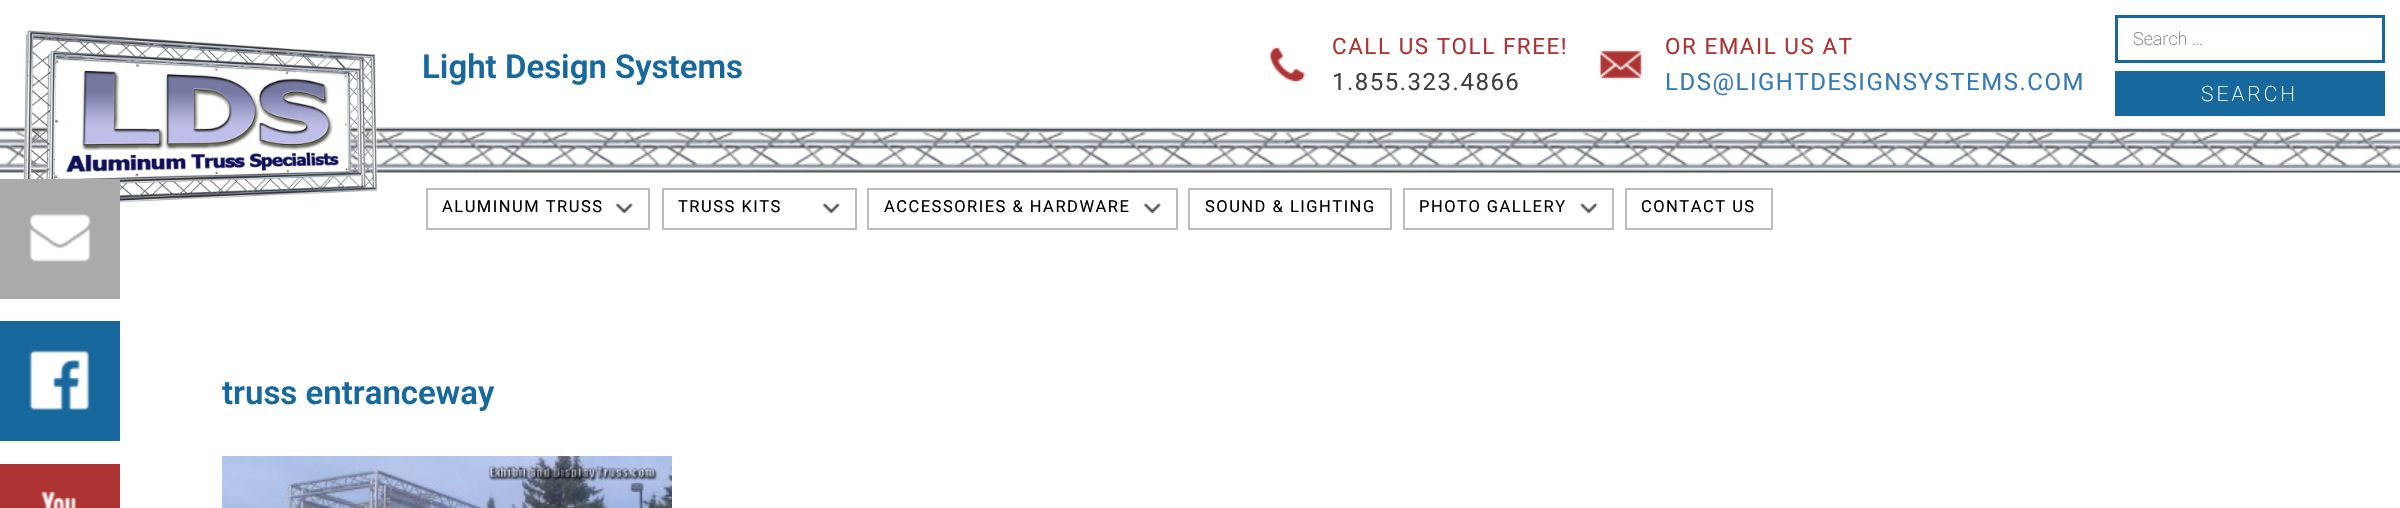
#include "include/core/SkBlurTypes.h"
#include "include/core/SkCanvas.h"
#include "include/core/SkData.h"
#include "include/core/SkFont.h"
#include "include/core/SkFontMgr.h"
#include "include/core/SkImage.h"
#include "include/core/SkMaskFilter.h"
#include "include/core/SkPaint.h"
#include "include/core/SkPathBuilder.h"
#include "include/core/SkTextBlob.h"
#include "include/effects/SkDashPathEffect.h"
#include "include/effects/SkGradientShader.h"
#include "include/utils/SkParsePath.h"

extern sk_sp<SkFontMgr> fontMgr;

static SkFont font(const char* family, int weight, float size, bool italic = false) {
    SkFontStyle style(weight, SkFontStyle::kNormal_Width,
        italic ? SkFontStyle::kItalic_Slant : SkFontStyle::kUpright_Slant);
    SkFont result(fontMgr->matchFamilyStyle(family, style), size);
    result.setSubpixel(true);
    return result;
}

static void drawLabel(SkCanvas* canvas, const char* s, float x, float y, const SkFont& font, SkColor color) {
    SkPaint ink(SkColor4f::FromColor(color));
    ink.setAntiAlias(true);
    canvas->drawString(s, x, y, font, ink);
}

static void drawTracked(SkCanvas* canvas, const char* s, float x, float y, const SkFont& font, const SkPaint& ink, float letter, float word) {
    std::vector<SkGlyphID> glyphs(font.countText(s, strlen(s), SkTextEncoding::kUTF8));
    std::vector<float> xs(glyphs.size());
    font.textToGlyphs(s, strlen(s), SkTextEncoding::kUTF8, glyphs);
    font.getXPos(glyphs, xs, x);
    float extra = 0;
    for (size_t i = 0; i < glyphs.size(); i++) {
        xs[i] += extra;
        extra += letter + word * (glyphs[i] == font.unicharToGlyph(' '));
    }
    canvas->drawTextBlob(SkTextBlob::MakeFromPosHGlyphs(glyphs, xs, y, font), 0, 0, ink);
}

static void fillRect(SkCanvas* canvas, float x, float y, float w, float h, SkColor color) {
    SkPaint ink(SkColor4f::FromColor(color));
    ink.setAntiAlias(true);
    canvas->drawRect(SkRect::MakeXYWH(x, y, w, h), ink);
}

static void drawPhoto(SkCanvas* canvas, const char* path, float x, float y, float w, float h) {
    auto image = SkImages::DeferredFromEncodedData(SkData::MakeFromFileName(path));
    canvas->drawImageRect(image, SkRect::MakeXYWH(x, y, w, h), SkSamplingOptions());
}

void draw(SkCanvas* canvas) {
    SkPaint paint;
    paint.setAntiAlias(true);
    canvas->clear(0xFFFFFFFF);
    drawPhoto(canvas, "assets/img1.png", 0, 127, 2400, 46);
    drawPhoto(canvas, "assets/img2.png", 23, 30, 355, 173);
    SkFont font1 = font("Roboto", 600, 33);
    drawLabel(canvas, "Light Design Systems", 422, 78, font1, 0xFF16689D);
    drawPhoto(canvas, "assets/img3.png", 1270, 47, 36, 36);
    SkFont font2 = font("Roboto", 400, 22.5f);
    paint.setColor(0xFFAE3333);
    drawTracked(canvas, "CALL US TOLL FREE!", 1332, 54, font2, paint, 1.5f, 0);
    SkFont font3 = font("Roboto", 400, 24);
    paint.setColor(0xFF404040);
    drawTracked(canvas, "1.855.323.4866", 1332, 90, font3, paint, 1.5f, 0);
    drawPhoto(canvas, "assets/img4.png", 1600, 50, 42, 29);
    paint.setColor(0xFFAE3333);
    drawTracked(canvas, "OR EMAIL US AT", 1665, 54, font2, paint, 1.5f, 0);
    paint.setColor(0xFF337AB7);
    drawTracked(canvas, "LDS@LIGHTDESIGNSYSTEMS.COM", 1665, 90, font3, paint, 1.5f, 0);
    paint.setStroke(true);
    paint.setStrokeWidth(3);
    paint.setColor(0xFF16689D);
    canvas->drawRect(SkRect::MakeXYWH(2116.5f, 16.5f, 267, 45), paint);
    SkFont font4 = font("Roboto", 200, 18);
    drawLabel(canvas, "Search …", 2133, 45, font4, 0xFF757575);
    fillRect(canvas, 2115, 71, 270, 45, 0xFF16689D);
    SkFont font5 = font("Roboto", 200, 21);
    paint.setStroke(false);
    paint.setColor(0xFFFFFFFF);
    drawTracked(canvas, "SEARCH", 2201, 101, font5, paint, 3, 0);
    drawPhoto(canvas, "assets/img5.png", 615, 202, 18, 11);
    paint.setStroke(true);
    paint.setStrokeWidth(2);
    paint.setColor(0xFFBBBBBB);
    canvas->drawRect(SkRect::MakeXYWH(427, 189, 222, 40), paint);
    SkFont font6 = font("Roboto", 400, 16.5f);
    paint.setStroke(false);
    paint.setColor(0xFF000000);
    drawTracked(canvas, "ALUMINUM TRUSS", 442, 212, font6, paint, 1.5f, 0);
    drawPhoto(canvas, "assets/img5.png", 822, 202, 18, 11);
    paint.setStroke(true);
    paint.setColor(0xFFBBBBBB);
    canvas->drawRect(SkRect::MakeXYWH(663, 189, 193, 40), paint);
    paint.setStroke(false);
    paint.setColor(0xFF000000);
    drawTracked(canvas, "TRUSS KITS", 678, 212, font6, paint, 1.5f, 0);
    drawPhoto(canvas, "assets/img6.png", 1143, 202, 18, 11);
    paint.setStroke(true);
    paint.setColor(0xFFBBBBBB);
    canvas->drawRect(SkRect::MakeXYWH(868, 189, 309, 40), paint);
    paint.setStroke(false);
    paint.setColor(0xFF000000);
    drawTracked(canvas, "ACCESSORIES & HARDWARE", 884, 212, font6, paint, 1.5f, 0);
    paint.setStroke(true);
    paint.setColor(0xFFBBBBBB);
    canvas->drawRect(SkRect::MakeXYWH(1189, 189, 202, 40), paint);
    paint.setStroke(false);
    paint.setColor(0xFF000000);
    drawTracked(canvas, "SOUND & LIGHTING", 1205, 212, font6, paint, 1.5f, 0);
    drawPhoto(canvas, "assets/img7.png", 1580, 202, 18, 11);
    paint.setStroke(true);
    paint.setColor(0xFFBBBBBB);
    canvas->drawRect(SkRect::MakeXYWH(1404, 189, 209, 40), paint);
    paint.setStroke(false);
    paint.setColor(0xFF000000);
    drawTracked(canvas, "PHOTO GALLERY", 1419, 212, font6, paint, 1.5f, 0);
    paint.setStroke(true);
    paint.setColor(0xFFBBBBBB);
    canvas->drawRect(SkRect::MakeXYWH(1626, 189, 146, 40), paint);
    paint.setStroke(false);
    paint.setColor(0xFF000000);
    drawTracked(canvas, "CONTACT US", 1641, 212, font6, paint, 1.5f, 0);
    fillRect(canvas, 0, 179, 120, 120, 0xFFAAAAAA);
    drawPhoto(canvas, "assets/img8.png", 29, 214, 62, 48);
    fillRect(canvas, 0, 321, 120, 120, 0xFF16689D);
    drawPhoto(canvas, "assets/img9.png", 29, 350, 61, 60);
    fillRect(canvas, 0, 464, 120, 44, 0xFFAE3333);
    drawPhoto(canvas, "assets/img10.png", 41, 491, 36, 17);
    drawLabel(canvas, "truss entranceway", 222, 404, font1, 0xFF16689D);
    drawPhoto(canvas, "assets/img11.png", 222, 456, 450, 52);
}
